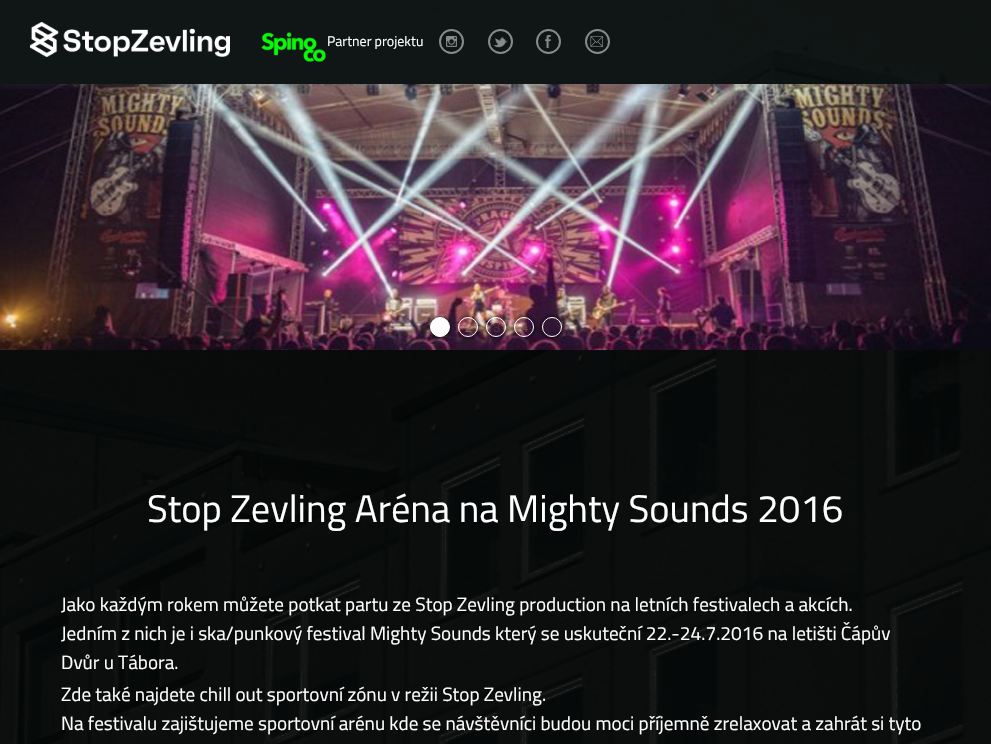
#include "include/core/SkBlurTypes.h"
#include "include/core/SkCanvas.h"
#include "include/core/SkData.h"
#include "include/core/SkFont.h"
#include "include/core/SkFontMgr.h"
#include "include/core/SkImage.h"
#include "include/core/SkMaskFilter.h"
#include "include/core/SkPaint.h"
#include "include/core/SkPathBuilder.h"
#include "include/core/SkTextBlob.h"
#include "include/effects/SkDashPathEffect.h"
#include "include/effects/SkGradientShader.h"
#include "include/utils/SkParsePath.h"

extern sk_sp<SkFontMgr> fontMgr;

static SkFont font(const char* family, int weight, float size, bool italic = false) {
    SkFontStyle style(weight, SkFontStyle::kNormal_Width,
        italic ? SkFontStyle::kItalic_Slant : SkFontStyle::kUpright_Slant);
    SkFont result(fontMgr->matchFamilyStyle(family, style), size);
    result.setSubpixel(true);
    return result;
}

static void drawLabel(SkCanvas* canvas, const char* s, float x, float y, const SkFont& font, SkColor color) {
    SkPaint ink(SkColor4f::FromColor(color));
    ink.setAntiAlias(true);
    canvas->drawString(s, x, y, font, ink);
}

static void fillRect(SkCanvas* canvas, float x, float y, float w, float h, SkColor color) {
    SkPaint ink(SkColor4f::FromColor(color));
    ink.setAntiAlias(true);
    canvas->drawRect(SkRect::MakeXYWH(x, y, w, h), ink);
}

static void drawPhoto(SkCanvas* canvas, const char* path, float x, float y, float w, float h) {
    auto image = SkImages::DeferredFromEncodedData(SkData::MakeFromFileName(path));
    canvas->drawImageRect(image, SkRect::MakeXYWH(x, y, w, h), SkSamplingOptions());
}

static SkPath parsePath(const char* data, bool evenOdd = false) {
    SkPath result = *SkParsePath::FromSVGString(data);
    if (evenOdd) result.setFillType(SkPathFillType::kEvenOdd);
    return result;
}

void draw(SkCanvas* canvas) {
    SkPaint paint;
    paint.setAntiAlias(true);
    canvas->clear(0xFFFFFFFF);
    drawPhoto(canvas, "assets/img1.png", 0, 0, 991, 744);
    drawPhoto(canvas, "assets/img8.png", 0, 84, 991, 266);
    canvas->save();
    canvas->clipRect(SkRect::MakeXYWH(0, 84, 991, 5));
    paint.setColor(0x266A6A6A);
    paint.setMaskFilter(SkMaskFilter::MakeBlur(kNormal_SkBlurStyle, 3));
    canvas->drawRect(SkRect::MakeXYWH(0, 2, 991, 84), paint);
    paint.setMaskFilter(nullptr);
    canvas->restore();
    fillRect(canvas, 0, 0, 991, 84, 0xBF000000);
    drawPhoto(canvas, "assets/img2.png", 30, 22, 200, 35);
    drawPhoto(canvas, "assets/img3.png", 261, 32, 65, 30);
    SkFont font1 = font("Titillium Web", 400, 14);
    drawLabel(canvas, "Partner projektu", 327, 46, font1, 0xFFFFFFFF);
    drawPhoto(canvas, "assets/img4.png", 446, 36, 11, 11);
    paint.setStroke(true);
    paint.setStrokeWidth(2);
    paint.setColor(0xFF878A8A);
    canvas->drawCircle(451.5f, 41.5f, 11.5f, paint);
    drawPhoto(canvas, "assets/img5.png", 493, 37, 15, 11);
    canvas->drawCircle(500.5f, 41.5f, 11.5f, paint);
    drawPhoto(canvas, "assets/img6.png", 545, 35, 6, 13);
    canvas->drawCircle(548.5f, 41.5f, 11.5f, paint);
    drawPhoto(canvas, "assets/img7.png", 590, 36, 13, 11);
    canvas->drawCircle(597.5f, 41.5f, 11.5f, paint);
    paint.setStroke(false);
    paint.setColor(0xFF000000);
    paint.setMaskFilter(SkMaskFilter::MakeBlur(kNormal_SkBlurStyle, 2.5f));
    canvas->drawRoundRect(SkRect::MakeXYWH(430, 317, 20, 20), 10, 10, paint);
    paint.setMaskFilter(nullptr);
    paint.setColor(0xFFFFFFFF);
    canvas->drawCircle(440, 327, 9.5f, paint);
    paint.setStroke(true);
    paint.setStrokeWidth(1);
    canvas->drawCircle(440, 327, 9.5f, paint);
    canvas->save();
    canvas->clipPath(parsePath("M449 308H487V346H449ZM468 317C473.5 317 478 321.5 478 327C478 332.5 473.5 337 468 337C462.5 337 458 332.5 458 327C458 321.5 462.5 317 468 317Z", true), true);
    paint.setStroke(false);
    paint.setColor(0xFF000000);
    paint.setMaskFilter(SkMaskFilter::MakeBlur(kNormal_SkBlurStyle, 2.5f));
    canvas->drawRoundRect(SkRect::MakeXYWH(458, 317, 20, 20), 10, 10, paint);
    paint.setMaskFilter(nullptr);
    canvas->restore();
    paint.setStroke(true);
    paint.setColor(0xFFFFFFFF);
    canvas->drawCircle(468, 327, 9.5f, paint);
    SkFont font2 = font("Liberation Sans", 400, 13);
    drawLabel(canvas, "2", 465, 332, font2, 0xFF905D5E);
    canvas->save();
    canvas->clipPath(parsePath("M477 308H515V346H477ZM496 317C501.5 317 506 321.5 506 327C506 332.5 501.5 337 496 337C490.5 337 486 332.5 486 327C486 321.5 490.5 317 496 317Z", true), true);
    paint.setStroke(false);
    paint.setColor(0xFF000000);
    paint.setMaskFilter(SkMaskFilter::MakeBlur(kNormal_SkBlurStyle, 2.5f));
    canvas->drawRoundRect(SkRect::MakeXYWH(486, 317, 20, 20), 10, 10, paint);
    paint.setMaskFilter(nullptr);
    canvas->restore();
    paint.setStroke(true);
    paint.setColor(0xFFFFFFFF);
    canvas->drawCircle(496, 327, 9.5f, paint);
    drawLabel(canvas, "3", 493, 332, font2, 0xFF4D2C3F);
    canvas->save();
    canvas->clipPath(parsePath("M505 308H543V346H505ZM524 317C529.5 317 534 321.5 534 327C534 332.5 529.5 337 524 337C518.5 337 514 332.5 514 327C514 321.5 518.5 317 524 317Z", true), true);
    paint.setStroke(false);
    paint.setColor(0xFF000000);
    paint.setMaskFilter(SkMaskFilter::MakeBlur(kNormal_SkBlurStyle, 2.5f));
    canvas->drawRoundRect(SkRect::MakeXYWH(514, 317, 20, 20), 10, 10, paint);
    paint.setMaskFilter(nullptr);
    canvas->restore();
    paint.setStroke(true);
    paint.setColor(0xFFFFFFFF);
    canvas->drawCircle(524, 327, 9.5f, paint);
    drawLabel(canvas, "4", 521, 332, font2, 0xFF6F464F);
    canvas->save();
    canvas->clipPath(parsePath("M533 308H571V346H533ZM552 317C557.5 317 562 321.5 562 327C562 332.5 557.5 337 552 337C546.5 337 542 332.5 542 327C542 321.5 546.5 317 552 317Z", true), true);
    paint.setStroke(false);
    paint.setColor(0xFF000000);
    paint.setMaskFilter(SkMaskFilter::MakeBlur(kNormal_SkBlurStyle, 2.5f));
    canvas->drawRoundRect(SkRect::MakeXYWH(542, 317, 20, 20), 10, 10, paint);
    paint.setMaskFilter(nullptr);
    canvas->restore();
    paint.setStroke(true);
    paint.setColor(0xFFFFFFFF);
    canvas->drawCircle(552, 327, 9.5f, paint);
    fillRect(canvas, 0, 350, 991, 394, 0xDE000000);
    SkFont font3 = font("Titillium Web", 400, 38.4f);
    drawLabel(canvas, "Stop Zevling Aréna na Mighty Sounds 2016", 147, 522, font3, 0xFFFFFFFF);
    SkFont font4 = font("Titillium Web", 400, 19.2f);
    drawLabel(canvas, "Jako každým rokem můžete potkat partu ze Stop Zevling production na letních festivalech a akcích.", 61, 611, font4, 0xFFFFFFFF);
    drawLabel(canvas, "Jedním z nich je i ska/punkový festival Mighty Sounds který se uskuteční 22.-24.7.2016 na letišti Čápův", 61, 640, font4, 0xFFFFFFFF);
    drawLabel(canvas, "Dvůr u Tábora.", 61, 669, font4, 0xFFFFFFFF);
    drawLabel(canvas, "Zde také najdete chill out sportovní zónu v režii Stop Zevling.", 61, 701, font4, 0xFFFFFFFF);
    drawLabel(canvas, "Na festivalu zajištujeme sportovní arénu kde se návštěvníci budou moci příjemně zrelaxovat a zahrát si tyto", 61, 730, font4, 0xFFFFFFFF);
}
